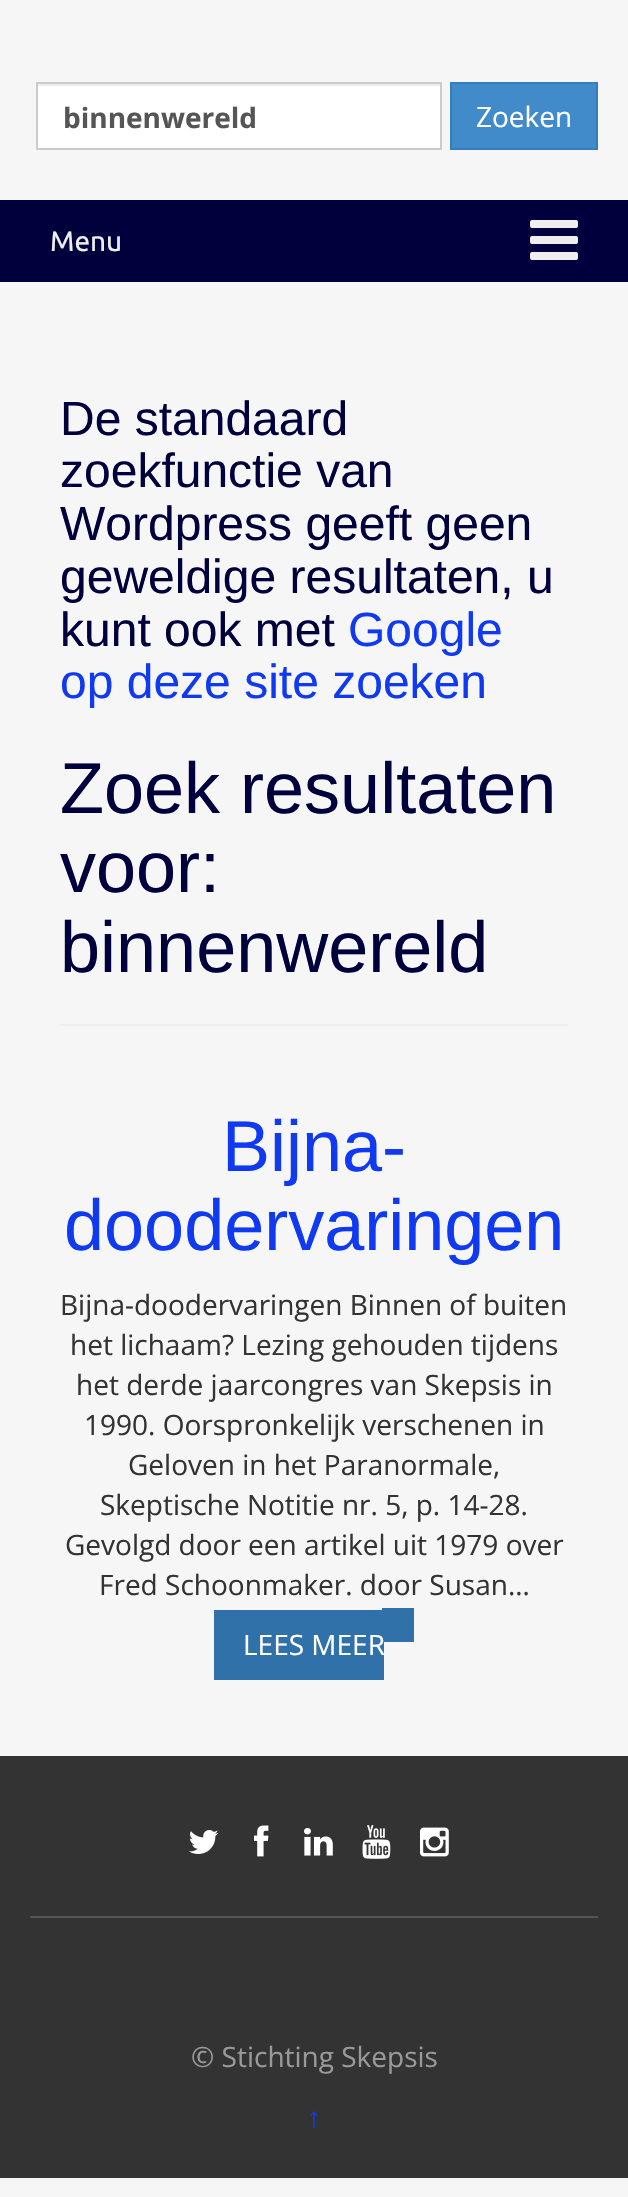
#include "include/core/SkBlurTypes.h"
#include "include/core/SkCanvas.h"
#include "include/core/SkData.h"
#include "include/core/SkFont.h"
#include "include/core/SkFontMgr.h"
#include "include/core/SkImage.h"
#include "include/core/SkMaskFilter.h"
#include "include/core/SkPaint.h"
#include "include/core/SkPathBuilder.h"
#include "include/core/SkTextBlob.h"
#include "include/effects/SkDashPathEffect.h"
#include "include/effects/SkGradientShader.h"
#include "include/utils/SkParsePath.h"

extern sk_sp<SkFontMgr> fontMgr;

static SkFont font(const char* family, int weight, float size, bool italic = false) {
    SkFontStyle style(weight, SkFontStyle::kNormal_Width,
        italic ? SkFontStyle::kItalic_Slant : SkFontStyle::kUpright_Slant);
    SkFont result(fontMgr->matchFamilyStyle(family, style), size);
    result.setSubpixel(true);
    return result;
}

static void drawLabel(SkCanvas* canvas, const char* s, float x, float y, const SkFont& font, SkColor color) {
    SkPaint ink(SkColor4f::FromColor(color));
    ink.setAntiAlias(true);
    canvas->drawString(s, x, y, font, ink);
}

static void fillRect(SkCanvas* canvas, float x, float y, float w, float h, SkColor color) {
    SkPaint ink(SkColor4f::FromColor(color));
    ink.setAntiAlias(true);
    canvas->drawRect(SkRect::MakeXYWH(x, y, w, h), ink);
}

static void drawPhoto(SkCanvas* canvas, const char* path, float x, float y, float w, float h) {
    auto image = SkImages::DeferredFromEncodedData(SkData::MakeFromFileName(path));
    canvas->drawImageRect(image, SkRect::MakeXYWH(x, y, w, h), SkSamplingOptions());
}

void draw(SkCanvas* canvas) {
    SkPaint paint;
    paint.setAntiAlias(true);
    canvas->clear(0xFFF6F6F6);
    fillRect(canvas, 38, 86, 402, 62, 0xFFFFFFFF);
    fillRect(canvas, 38, 84, 402, 2, 0xFFECECEC);
    paint.setStroke(true);
    paint.setStrokeWidth(2);
    paint.setColor(0xFFCCCCCC);
    canvas->drawRect(SkRect::MakeXYWH(37, 83, 404, 66), paint);
    SkFont font1 = font("Open Sans", 700, 28);
    drawLabel(canvas, "binnenwereld", 63, 128, font1, 0xFF555555);
    paint.setStroke(false);
    paint.setColor(0xFF428BCA);
    canvas->drawRect(SkRect::MakeXYWH(451, 83, 146, 66), paint);
    paint.setStroke(true);
    paint.setColor(0xFF357EBD);
    canvas->drawRect(SkRect::MakeXYWH(451, 83, 146, 66), paint);
    SkFont font2 = font("Open Sans", 400, 28);
    drawLabel(canvas, "Zoeken", 476, 127, font2, 0xFFFFFFFF);
    fillRect(canvas, 0, 200, 628, 82, 0xFF00003D);
    SkFont font3 = font("Ubuntu", 400, 28);
    drawLabel(canvas, "Menu", 50, 251, font3, 0xFFEEEEEE);
    drawPhoto(canvas, "assets/img1.png", 530, 220, 48, 40);
    fillRect(canvas, 60, 1024, 508, 2, 0xFFEEEEEE);
    SkFont font4 = font("Liberation Sans", 400, 48);
    drawLabel(canvas, "De standaard", 60, 435, font4, 0xFF00003D);
    drawLabel(canvas, "zoekfunctie van", 60, 487, font4, 0xFF00003D);
    drawLabel(canvas, "Wordpress geeft geen", 60, 540, font4, 0xFF00003D);
    drawLabel(canvas, "geweldige resultaten, u", 60, 593, font4, 0xFF00003D);
    drawLabel(canvas, "kunt ook met", 60, 646, font4, 0xFF00003D);
    drawLabel(canvas, "Google", 348, 646, font4, 0xFF103AF2);
    drawLabel(canvas, "op deze site zoeken", 60, 698, font4, 0xFF103AF2);
    SkFont font5 = font("Liberation Sans", 400, 72);
    drawLabel(canvas, "Zoek resultaten", 60, 813, font5, 0xFF00003D);
    drawLabel(canvas, "voor:", 60, 892, font5, 0xFF00003D);
    drawLabel(canvas, "binnenwereld", 60, 972, font5, 0xFF00003D);
    drawLabel(canvas, "Bijna-", 222, 1171, font5, 0xFF103AF2);
    drawLabel(canvas, "doodervaringen", 64, 1250, font5, 0xFF103AF2);
    drawLabel(canvas, "Bijna-doodervaringen Binnen of buiten", 60, 1315, font2, 0xFF333333);
    drawLabel(canvas, "het lichaam? Lezing gehouden tijdens", 70, 1355, font2, 0xFF333333);
    drawLabel(canvas, "het derde jaarcongres van Skepsis in", 76, 1395, font2, 0xFF333333);
    drawLabel(canvas, "1990. Oorspronkelijk verschenen in", 84, 1435, font2, 0xFF333333);
    drawLabel(canvas, "Geloven in het Paranormale,", 128, 1475, font2, 0xFF333333);
    drawLabel(canvas, "Skeptische Notitie nr. 5, p. 14-28.", 100, 1515, font2, 0xFF333333);
    drawLabel(canvas, "Gevolgd door een artikel uit 1979 over", 65, 1555, font2, 0xFF333333);
    drawLabel(canvas, "Fred Schoonmaker. door Susan…", 99, 1595, font2, 0xFF333333);
    fillRect(canvas, 214, 1610, 170, 70, 0xFF3071A9);
    fillRect(canvas, 382, 1608, 32, 34, 0xFF3071A9);
    drawLabel(canvas, "LEES MEER", 243, 1655, font2, 0xFFFFFFFF);
    fillRect(canvas, 0, 1756, 628, 422, 0xFF333333);
    fillRect(canvas, 30, 1916, 568, 2, 0xFF555555);
    drawPhoto(canvas, "assets/img2.png", 189, 1830, 30, 24);
    drawPhoto(canvas, "assets/img3.png", 254, 1825, 15, 32);
    drawPhoto(canvas, "assets/img4.png", 304, 1828, 29, 28);
    drawPhoto(canvas, "assets/img5.png", 362, 1825, 29, 34);
    drawPhoto(canvas, "assets/img6.png", 420, 1827, 29, 30);
    drawLabel(canvas, "© Stichting Skepsis", 191, 2067, font2, 0xFF999999);
    SkFont font6 = font("Liberation Sans", 400, 28);
    drawLabel(canvas, "↑", 307, 2127, font6, 0xFF103AF2);
}
